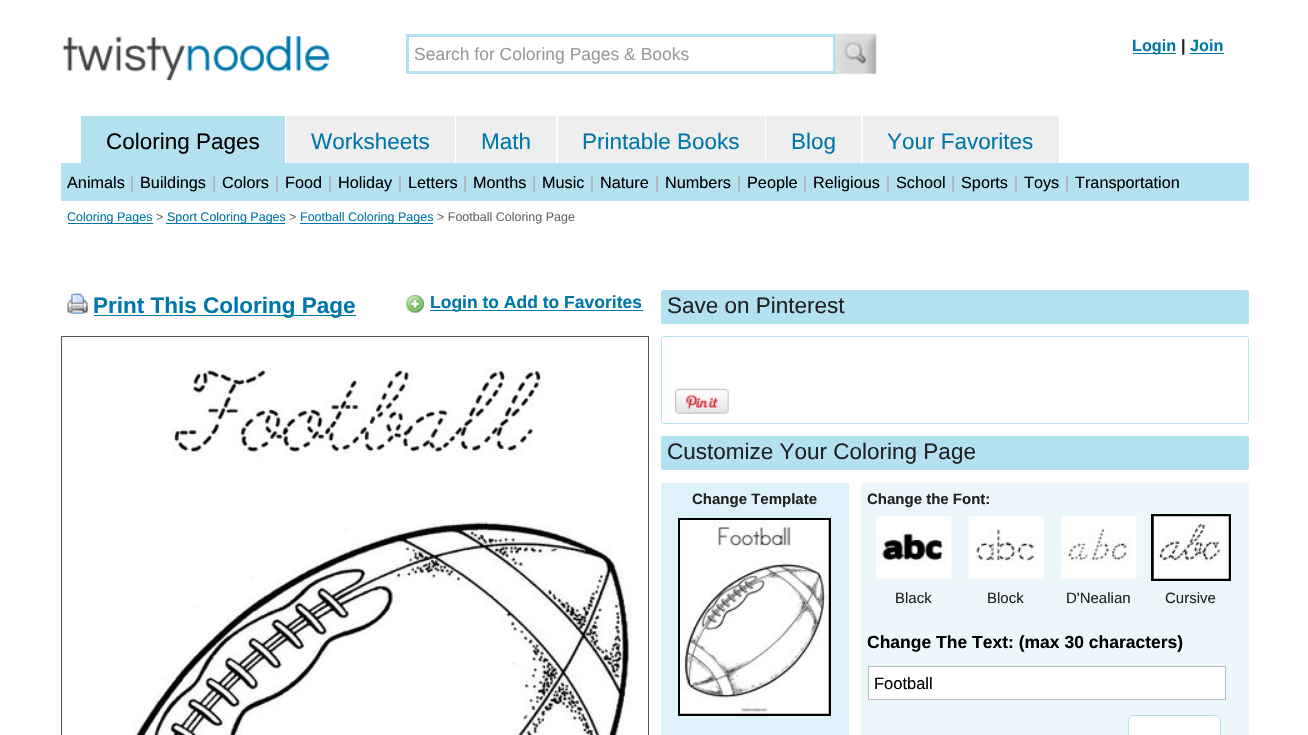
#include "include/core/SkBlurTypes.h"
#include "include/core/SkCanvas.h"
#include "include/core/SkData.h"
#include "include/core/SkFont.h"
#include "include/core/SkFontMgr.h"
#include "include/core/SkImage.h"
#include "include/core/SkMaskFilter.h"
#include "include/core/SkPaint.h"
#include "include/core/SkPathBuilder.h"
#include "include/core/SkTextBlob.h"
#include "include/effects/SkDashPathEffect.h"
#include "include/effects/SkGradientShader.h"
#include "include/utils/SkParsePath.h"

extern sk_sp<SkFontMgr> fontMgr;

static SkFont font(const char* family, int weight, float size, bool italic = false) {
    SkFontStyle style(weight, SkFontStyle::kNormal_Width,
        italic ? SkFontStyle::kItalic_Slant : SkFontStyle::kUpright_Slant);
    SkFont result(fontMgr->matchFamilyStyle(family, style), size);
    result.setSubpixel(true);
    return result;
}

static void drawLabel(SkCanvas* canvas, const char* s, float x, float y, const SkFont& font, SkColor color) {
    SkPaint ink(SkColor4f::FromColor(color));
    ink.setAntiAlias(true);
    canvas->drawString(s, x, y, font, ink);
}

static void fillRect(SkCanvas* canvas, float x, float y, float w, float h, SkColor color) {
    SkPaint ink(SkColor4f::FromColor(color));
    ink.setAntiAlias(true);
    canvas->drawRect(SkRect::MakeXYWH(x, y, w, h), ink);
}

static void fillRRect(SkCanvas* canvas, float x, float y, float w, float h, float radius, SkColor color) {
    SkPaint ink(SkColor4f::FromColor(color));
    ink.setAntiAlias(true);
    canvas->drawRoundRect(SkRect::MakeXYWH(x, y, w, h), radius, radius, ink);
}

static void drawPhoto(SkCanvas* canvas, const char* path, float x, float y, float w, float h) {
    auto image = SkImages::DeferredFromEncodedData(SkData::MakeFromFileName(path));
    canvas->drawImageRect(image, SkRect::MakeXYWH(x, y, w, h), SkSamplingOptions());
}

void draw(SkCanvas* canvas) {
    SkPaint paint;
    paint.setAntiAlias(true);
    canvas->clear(0xFFFFFFFF);
    drawPhoto(canvas, "assets/img1.png", 62, 36, 269, 45);
    paint.setStroke(true);
    paint.setStrokeWidth(3);
    paint.setColor(0xFFB3E1F0);
    canvas->drawRect(SkRect::MakeXYWH(407.5f, 35.5f, 427, 37), paint);
    SkFont font1 = font("Liberation Sans", 400, 17.5f);
    drawLabel(canvas, "Search for Coloring Pages & Books", 414, 60, font1, 0xFF999999);
    drawPhoto(canvas, "assets/img2.png", 836, 33, 41, 41);
    fillRect(canvas, 1133, 53, 43, 1, 0xFF0077AA);
    SkFont font2 = font("Liberation Sans", 700, 16.25f);
    drawLabel(canvas, "Login", 1132, 51, font2, 0xFF0077AA);
    drawLabel(canvas, "|", 1181, 51, font2, 0xFF222222);
    drawLabel(canvas, "Join", 1190, 51, font2, 0xFF0077AA);
    fillRect(canvas, 1190, 53, 34, 1, 0xFF0077AA);
    fillRect(canvas, 81, 116, 204, 47, 0xFFB3E1F0);
    SkFont font3 = font("Liberation Sans", 400, 22.5f);
    drawLabel(canvas, "Coloring Pages", 106, 149, font3, 0xFF000000);
    fillRect(canvas, 286, 116, 169, 47, 0xFFEEEEEE);
    drawLabel(canvas, "Worksheets", 311, 149, font3, 0xFF0077AA);
    fillRect(canvas, 456, 116, 100, 47, 0xFFEEEEEE);
    drawLabel(canvas, "Math", 481, 149, font3, 0xFF0077AA);
    fillRect(canvas, 558, 116, 207, 47, 0xFFEEEEEE);
    drawLabel(canvas, "Printable Books", 582, 149, font3, 0xFF0077AA);
    fillRect(canvas, 766, 116, 95, 47, 0xFFEEEEEE);
    drawLabel(canvas, "Blog", 791, 149, font3, 0xFF0077AA);
    fillRect(canvas, 863, 116, 196, 47, 0xFFEEEEEE);
    drawLabel(canvas, "Your Favorites", 887, 149, font3, 0xFF0077AA);
    fillRect(canvas, 61, 163, 1188, 38, 0xFFB3E1F0);
    SkFont font4 = font("Liberation Sans", 400, 16.25f);
    drawLabel(canvas, "Animals", 67, 188, font4, 0xFF000000);
    drawLabel(canvas, "|", 130, 188, font4, 0xFFAAAAAA);
    drawLabel(canvas, "Buildings", 140, 188, font4, 0xFF000000);
    drawLabel(canvas, "|", 212, 188, font4, 0xFFAAAAAA);
    drawLabel(canvas, "Colors", 222, 188, font4, 0xFF000000);
    drawLabel(canvas, "|", 275, 188, font4, 0xFFAAAAAA);
    drawLabel(canvas, "Food", 285, 188, font4, 0xFF000000);
    drawLabel(canvas, "|", 328, 188, font4, 0xFFAAAAAA);
    drawLabel(canvas, "Holiday", 338, 188, font4, 0xFF000000);
    drawLabel(canvas, "|", 398, 188, font4, 0xFFAAAAAA);
    drawLabel(canvas, "Letters", 408, 188, font4, 0xFF000000);
    drawLabel(canvas, "|", 463, 188, font4, 0xFFAAAAAA);
    drawLabel(canvas, "Months", 473, 188, font4, 0xFF000000);
    drawLabel(canvas, "|", 532, 188, font4, 0xFFAAAAAA);
    drawLabel(canvas, "Music", 542, 188, font4, 0xFF000000);
    drawLabel(canvas, "|", 590, 188, font4, 0xFFAAAAAA);
    drawLabel(canvas, "Nature", 600, 188, font4, 0xFF000000);
    drawLabel(canvas, "|", 655, 188, font4, 0xFFAAAAAA);
    drawLabel(canvas, "Numbers", 665, 188, font4, 0xFF000000);
    drawLabel(canvas, "|", 737, 188, font4, 0xFFAAAAAA);
    drawLabel(canvas, "People", 747, 188, font4, 0xFF000000);
    drawLabel(canvas, "|", 803, 188, font4, 0xFFAAAAAA);
    drawLabel(canvas, "Religious", 813, 188, font4, 0xFF000000);
    drawLabel(canvas, "|", 886, 188, font4, 0xFFAAAAAA);
    drawLabel(canvas, "School", 896, 188, font4, 0xFF000000);
    drawLabel(canvas, "|", 951, 188, font4, 0xFFAAAAAA);
    drawLabel(canvas, "Sports", 961, 188, font4, 0xFF000000);
    drawLabel(canvas, "|", 1014, 188, font4, 0xFFAAAAAA);
    drawLabel(canvas, "Toys", 1024, 188, font4, 0xFF000000);
    drawLabel(canvas, "|", 1065, 188, font4, 0xFFAAAAAA);
    drawLabel(canvas, "Transportation", 1075, 188, font4, 0xFF000000);
    fillRect(canvas, 68, 223, 85, 1, 0xFF0077AA);
    SkFont font5 = font("Liberation Sans", 400, 12.5f);
    drawLabel(canvas, "Coloring Pages", 67, 221, font5, 0xFF0077AA);
    drawLabel(canvas, ">", 156, 221, font5, 0xFF666666);
    fillRect(canvas, 166, 223, 119, 1, 0xFF0077AA);
    drawLabel(canvas, "Sport Coloring Pages", 167, 221, font5, 0xFF0077AA);
    drawLabel(canvas, ">", 289, 221, font5, 0xFF666666);
    fillRect(canvas, 300, 223, 133, 1, 0xFF0077AA);
    drawLabel(canvas, "Football Coloring Pages", 300, 221, font5, 0xFF0077AA);
    drawLabel(canvas, "> Football Coloring Page", 437, 221, font5, 0xFF666666);
    drawPhoto(canvas, "assets/img3.png", 67, 293, 21, 21);
    fillRect(canvas, 94, 315, 262, 1, 0xFF0077AA);
    SkFont font6 = font("Liberation Sans", 700, 22.5f);
    drawLabel(canvas, "Print This Coloring Page", 93, 313, font6, 0xFF0077AA);
    drawPhoto(canvas, "assets/img4.png", 406, 294, 18, 19);
    fillRect(canvas, 430, 310, 213, 1, 0xFF0077AA);
    SkFont font7 = font("Liberation Sans", 700, 17.5f);
    drawLabel(canvas, "Login to Add to Favorites", 430, 308, font7, 0xFF0077AA);
    paint.setStrokeWidth(1);
    paint.setColor(0xFF555555);
    canvas->drawRect(SkRect::MakeXYWH(61.5f, 336.5f, 587, 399), paint);
    drawPhoto(canvas, "assets/img5.png", 134, 367, 499, 368);
    fillRRect(canvas, 661, 290, 588, 34, 2.5f, 0xFFB3E1F0);
    drawLabel(canvas, "Save on Pinterest", 667, 313, font3, 0xFF222222);
    paint.setColor(0xFFB3E1F0);
    canvas->drawRoundRect(SkRect::MakeXYWH(661.5f, 336.5f, 587, 87), 2, 2, paint);
    drawPhoto(canvas, "assets/img6.png", 675, 388, 54, 26);
    fillRRect(canvas, 661, 436, 588, 34, 2.5f, 0xFFB3E1F0);
    drawLabel(canvas, "Customize Your Coloring Page", 667, 459, font3, 0xFF222222);
    fillRect(canvas, 661, 483, 188, 252, 0xFFDDF2F9);
    SkFont font8 = font("Liberation Sans", 700, 15);
    drawLabel(canvas, "Change Template", 692, 504, font8, 0xFF222222);
    paint.setStrokeWidth(3);
    paint.setColor(0xFF000000);
    canvas->drawRect(SkRect::MakeXYWH(679.5f, 519.5f, 150, 195), paint);
    drawPhoto(canvas, "assets/img7.png", 680, 520, 149, 194);
    fillRect(canvas, 861, 483, 388, 252, 0xFFECF7FB);
    drawLabel(canvas, "Change the Font:", 867, 504, font8, 0xFF222222);
    drawPhoto(canvas, "assets/img8.png", 876, 516, 76, 63);
    SkFont font9 = font("Liberation Sans", 400, 15);
    drawLabel(canvas, "Black", 895, 603, font9, 0xFF222222);
    drawPhoto(canvas, "assets/img9.png", 968, 516, 76, 63);
    drawLabel(canvas, "Block", 987, 603, font9, 0xFF222222);
    drawPhoto(canvas, "assets/img10.png", 1061, 516, 76, 63);
    drawLabel(canvas, "D'Nealian", 1066, 603, font9, 0xFF222222);
    canvas->drawRect(SkRect::MakeXYWH(1152.5f, 515.5f, 77, 64), paint);
    drawPhoto(canvas, "assets/img11.png", 1153, 516, 76, 63);
    drawLabel(canvas, "Cursive", 1165, 603, font9, 0xFF222222);
    drawLabel(canvas, "Change The Text: (max 30 characters)", 867, 648, font7, 0xFF000000);
    paint.setStroke(false);
    paint.setColor(0xFFFFFFFF);
    canvas->drawRect(SkRect::MakeXYWH(868.5f, 666.5f, 357, 33), paint);
    paint.setStroke(true);
    paint.setStrokeWidth(1);
    paint.setColor(0xFFBBBBBB);
    canvas->drawRect(SkRect::MakeXYWH(868.5f, 666.5f, 357, 33), paint);
    SkFont font10 = font("Liberation Sans", 400, 16.5f);
    drawLabel(canvas, "Football", 874, 689, font10, 0xFF000000);
    paint.setStroke(false);
    paint.setColor(0xFFFFFFFF);
    canvas->drawRoundRect(SkRect::MakeXYWH(1128.5f, 715.5f, 92, 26), 5.5f, 5.5f, paint);
    paint.setStroke(true);
    paint.setColor(0xFFB3E1F0);
    canvas->drawRoundRect(SkRect::MakeXYWH(1128.5f, 715.5f, 92, 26), 5.5f, 5.5f, paint);
}
